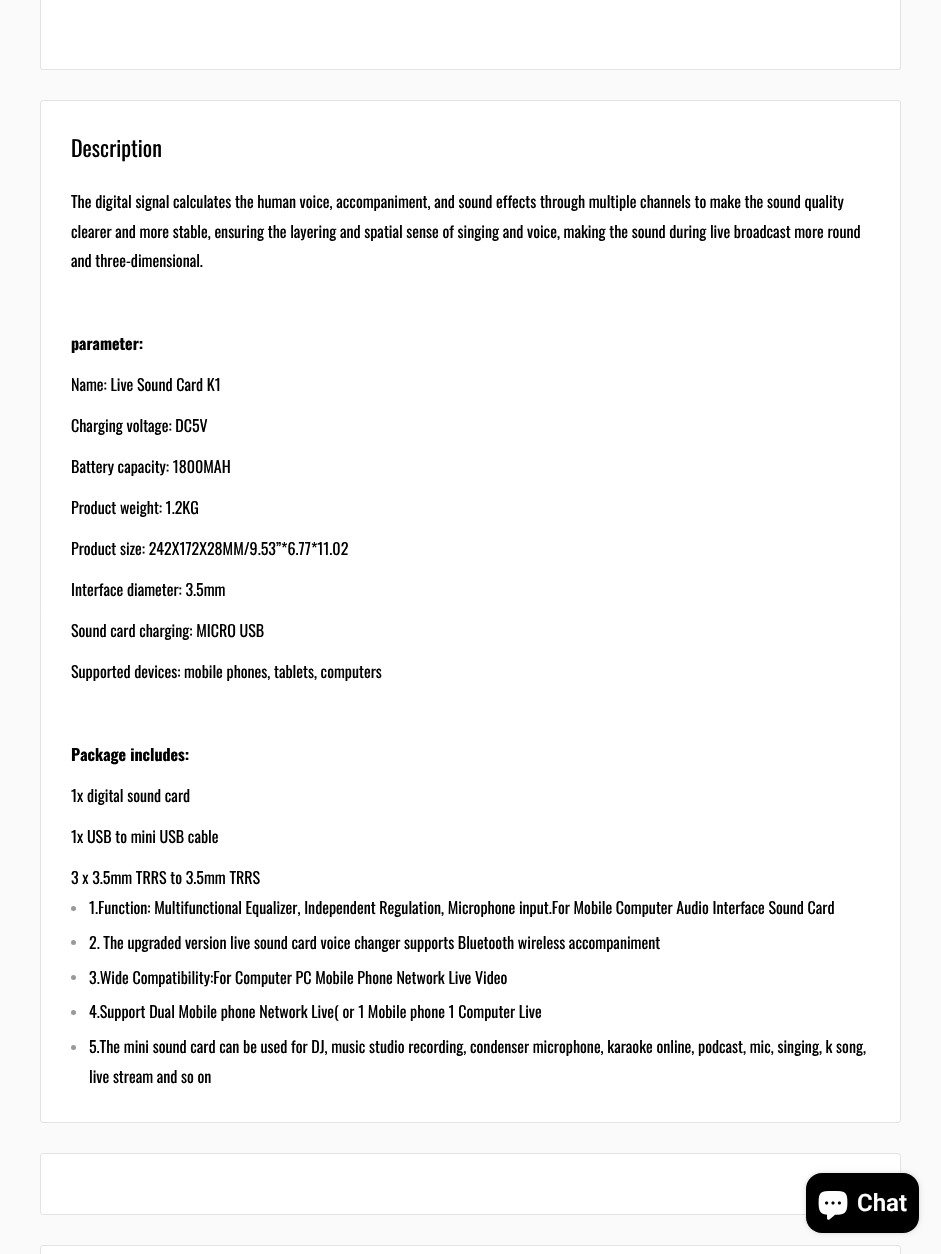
#include "include/core/SkBlurTypes.h"
#include "include/core/SkCanvas.h"
#include "include/core/SkData.h"
#include "include/core/SkFont.h"
#include "include/core/SkFontMgr.h"
#include "include/core/SkImage.h"
#include "include/core/SkMaskFilter.h"
#include "include/core/SkPaint.h"
#include "include/core/SkPathBuilder.h"
#include "include/core/SkTextBlob.h"
#include "include/effects/SkDashPathEffect.h"
#include "include/effects/SkGradientShader.h"
#include "include/utils/SkParsePath.h"

extern sk_sp<SkFontMgr> fontMgr;

static SkFont font(const char* family, int weight, float size, bool italic = false) {
    SkFontStyle style(weight, SkFontStyle::kNormal_Width,
        italic ? SkFontStyle::kItalic_Slant : SkFontStyle::kUpright_Slant);
    SkFont result(fontMgr->matchFamilyStyle(family, style), size);
    result.setSubpixel(true);
    return result;
}

static void drawLabel(SkCanvas* canvas, const char* s, float x, float y, const SkFont& font, SkColor color) {
    SkPaint ink(SkColor4f::FromColor(color));
    ink.setAntiAlias(true);
    canvas->drawString(s, x, y, font, ink);
}

static void fillRRect(SkCanvas* canvas, float x, float y, float w, float h, float radius, SkColor color) {
    SkPaint ink(SkColor4f::FromColor(color));
    ink.setAntiAlias(true);
    canvas->drawRoundRect(SkRect::MakeXYWH(x, y, w, h), radius, radius, ink);
}

static void drawPhoto(SkCanvas* canvas, const char* path, float x, float y, float w, float h) {
    auto image = SkImages::DeferredFromEncodedData(SkData::MakeFromFileName(path));
    canvas->drawImageRect(image, SkRect::MakeXYWH(x, y, w, h), SkSamplingOptions());
}

static SkPath parsePath(const char* data, bool evenOdd = false) {
    SkPath result = *SkParsePath::FromSVGString(data);
    if (evenOdd) result.setFillType(SkPathFillType::kEvenOdd);
    return result;
}

void draw(SkCanvas* canvas) {
    SkPaint paint;
    paint.setAntiAlias(true);
    canvas->clear(0xFFFAFAFA);
    fillRRect(canvas, 40, -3, 861, 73, 3, 0xFFFFFFFF);
    paint.setColor(0xFFE1E3E4);
    canvas->drawPath(parsePath("M43-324H898C900-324 901-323 901-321V67C901 69 900 70 898 70H43C41 70 40 69 40 67V-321C40-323 41-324 43-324ZM43-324H898C899-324 900-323 900-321V67C900 68 899 69 898 69H43C42 69 41 68 41 67V-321C41-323 42-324 43-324Z", true), paint);
    paint.setColor(0xFFFFFFFF);
    canvas->drawRoundRect(SkRect::MakeXYWH(40.5f, 100.5f, 860, 1022), 2.5f, 2.5f, paint);
    paint.setStroke(true);
    paint.setStrokeWidth(1);
    paint.setColor(0xFFE1E3E4);
    canvas->drawRoundRect(SkRect::MakeXYWH(40.5f, 100.5f, 860, 1022), 2.5f, 2.5f, paint);
    SkFont font1 = font("Oswald", 400, 22);
    drawLabel(canvas, "Description", 71, 157, font1, 0xFF000000);
    SkFont font2 = font("Oswald", 400, 16);
    drawLabel(canvas, "The digital signal calculates the human voice, accompaniment, and sound effects through multiple channels to make the sound quality", 71, 208, font2, 0xFF000000);
    drawLabel(canvas, "clearer and more stable, ensuring the layering and spatial sense of singing and voice, making the sound during live broadcast more round", 71, 238, font2, 0xFF000000);
    drawLabel(canvas, "and three-dimensional.", 71, 267, font2, 0xFF000000);
    SkFont font3 = font("Oswald", 700, 16);
    drawLabel(canvas, "parameter:", 71, 350, font3, 0xFF000000);
    drawLabel(canvas, "Name: Live Sound Card K1", 71, 391, font2, 0xFF000000);
    drawLabel(canvas, "Charging voltage: DC5V", 71, 432, font2, 0xFF000000);
    drawLabel(canvas, "Battery capacity: 1800MAH", 71, 473, font2, 0xFF000000);
    drawLabel(canvas, "Product weight: 1.2KG", 71, 514, font2, 0xFF000000);
    drawLabel(canvas, "Product size: 242X172X28MM/9.53”*6.77*11.02", 71, 555, font2, 0xFF000000);
    drawLabel(canvas, "Interface diameter: 3.5mm", 71, 596, font2, 0xFF000000);
    drawLabel(canvas, "Sound card charging: MICRO USB", 71, 637, font2, 0xFF000000);
    drawLabel(canvas, "Supported devices: mobile phones, tablets, computers", 71, 678, font2, 0xFF000000);
    drawLabel(canvas, "Package includes:", 71, 761, font3, 0xFF000000);
    drawLabel(canvas, "1x digital sound card", 71, 802, font2, 0xFF000000);
    drawLabel(canvas, "1x USB to mini USB cable", 71, 843, font2, 0xFF000000);
    drawLabel(canvas, "3 x 3.5mm TRRS to 3.5mm TRRS", 71, 884, font2, 0xFF000000);
    paint.setStroke(false);
    paint.setColor(0xFF999999);
    canvas->drawCircle(73.5f, 908.5f, 2.5f, paint);
    drawLabel(canvas, "1.Function: Multifunctional Equalizer, Independent Regulation, Microphone input.For Mobile Computer Audio Interface Sound Card", 89, 914, font2, 0xFF000000);
    canvas->drawCircle(73.5f, 942.5f, 2.5f, paint);
    drawLabel(canvas, "2. The upgraded version live sound card voice changer supports Bluetooth wireless accompaniment", 89, 949, font2, 0xFF000000);
    canvas->drawCircle(73.5f, 977.5f, 2.5f, paint);
    drawLabel(canvas, "3.Wide Compatibility:For Computer PC Mobile Phone Network Live Video", 89, 984, font2, 0xFF000000);
    canvas->drawCircle(73.5f, 1012.5f, 2.5f, paint);
    drawLabel(canvas, "4.Support Dual Mobile phone Network Live( or 1 Mobile phone 1 Computer Live", 89, 1018, font2, 0xFF000000);
    canvas->drawCircle(73.5f, 1047.5f, 2.5f, paint);
    drawLabel(canvas, "5.The mini sound card can be used for DJ, music studio recording, condenser microphone, karaoke online, podcast, mic, singing, k song,", 89, 1053, font2, 0xFF000000);
    drawLabel(canvas, "live stream and so on", 89, 1083, font2, 0xFF000000);
    paint.setColor(0xFFFFFFFF);
    canvas->drawRoundRect(SkRect::MakeXYWH(40.5f, 1153.5f, 860, 61), 2.5f, 2.5f, paint);
    paint.setStroke(true);
    paint.setColor(0xFFE1E3E4);
    canvas->drawRoundRect(SkRect::MakeXYWH(40.5f, 1153.5f, 860, 61), 2.5f, 2.5f, paint);
    paint.setStroke(false);
    paint.setColor(0xFFFFFFFF);
    canvas->drawRoundRect(SkRect::MakeXYWH(40.5f, 1245.5f, 860, 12), 2.5f, 2.5f, paint);
    paint.setStroke(true);
    paint.setColor(0xFFE1E3E4);
    canvas->drawRoundRect(SkRect::MakeXYWH(40.5f, 1245.5f, 860, 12), 2.5f, 2.5f, paint);
    paint.setStroke(false);
    paint.setColor(0x26000000);
    paint.setMaskFilter(SkMaskFilter::MakeBlur(kNormal_SkBlurStyle, 2.5f));
    canvas->drawRoundRect(SkRect::MakeXYWH(806, 1173, 113, 60), 16, 16, paint);
    paint.setMaskFilter(nullptr);
    fillRRect(canvas, 806, 1173, 113, 60, 16, 0xFF000000);
    drawPhoto(canvas, "assets/img1.png", 818, 1191, 30, 29);
    SkFont font4 = font("Roboto", 600, 24);
    drawLabel(canvas, "Chat", 857, 1211, font4, 0xFFFFFFFF);
}
